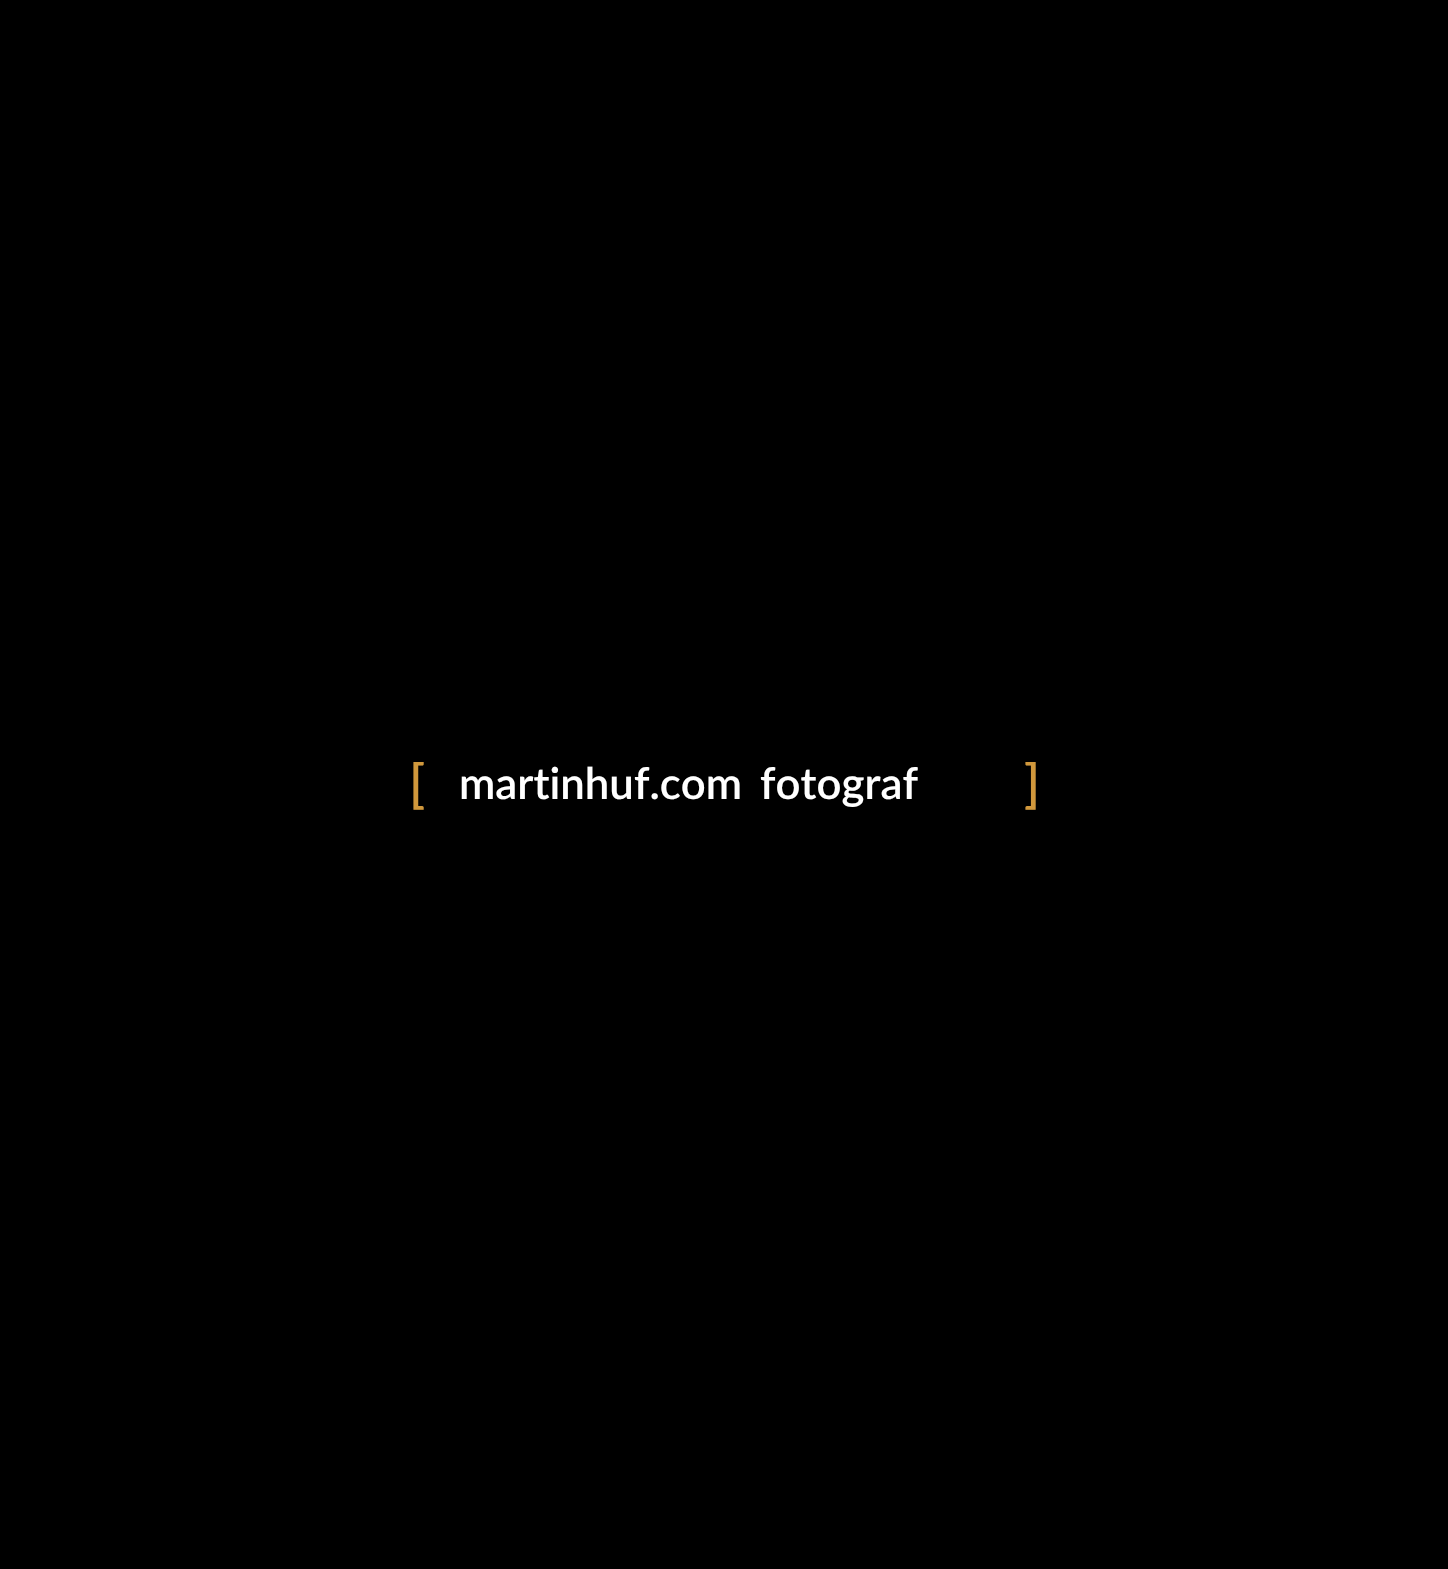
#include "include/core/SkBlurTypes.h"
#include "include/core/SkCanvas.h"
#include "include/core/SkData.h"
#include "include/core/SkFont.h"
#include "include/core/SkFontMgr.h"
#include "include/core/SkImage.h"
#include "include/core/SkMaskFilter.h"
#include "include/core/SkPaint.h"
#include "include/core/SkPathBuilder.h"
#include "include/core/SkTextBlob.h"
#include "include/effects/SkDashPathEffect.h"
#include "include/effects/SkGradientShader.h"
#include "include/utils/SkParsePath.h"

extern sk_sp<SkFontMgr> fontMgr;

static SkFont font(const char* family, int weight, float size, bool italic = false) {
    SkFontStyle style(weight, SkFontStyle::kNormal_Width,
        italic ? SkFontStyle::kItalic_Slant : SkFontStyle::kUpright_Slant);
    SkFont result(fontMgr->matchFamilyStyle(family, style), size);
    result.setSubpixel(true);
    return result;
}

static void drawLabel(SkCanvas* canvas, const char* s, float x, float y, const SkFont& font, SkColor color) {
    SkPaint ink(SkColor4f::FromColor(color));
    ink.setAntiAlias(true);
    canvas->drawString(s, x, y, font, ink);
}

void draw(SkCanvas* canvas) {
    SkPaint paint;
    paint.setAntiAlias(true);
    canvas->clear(0xFF000000);
    SkFont font1 = font("Lato", 600, 52);
    drawLabel(canvas, "[", 409, 802, font1, 0xFFD1983C);
    SkFont font2 = font("Lato", 600, 43.75f);
    drawLabel(canvas, "martinhuf.com", 459, 799, font2, 0xFFFFFFFF);
    drawLabel(canvas, "fotograf", 760, 799, font2, 0xFFFFFFFF);
    drawLabel(canvas, "]", 1024, 802, font1, 0xFFD1983C);
}
